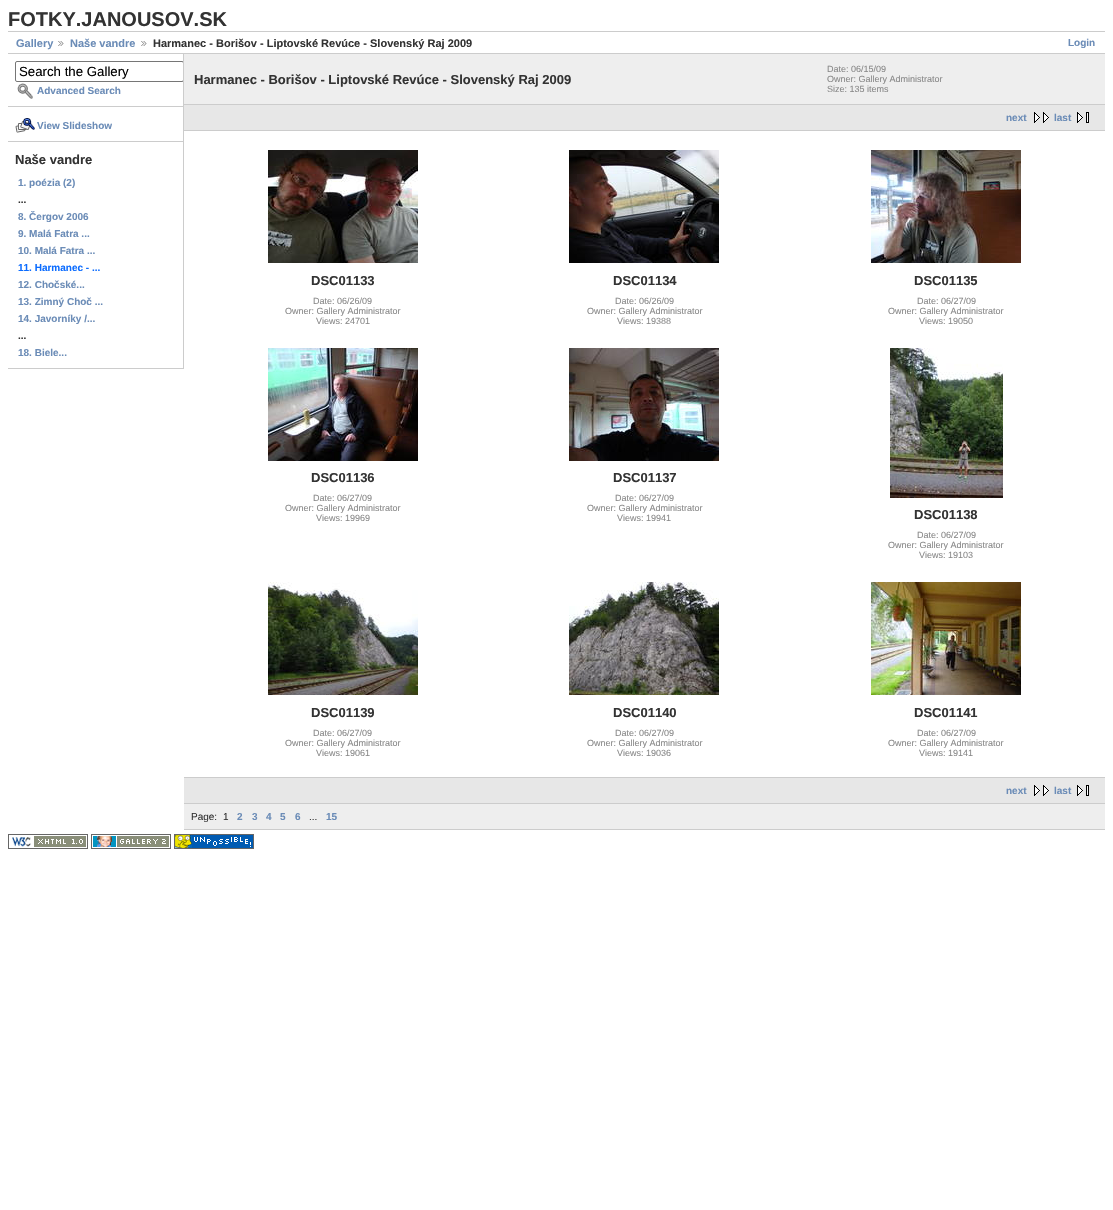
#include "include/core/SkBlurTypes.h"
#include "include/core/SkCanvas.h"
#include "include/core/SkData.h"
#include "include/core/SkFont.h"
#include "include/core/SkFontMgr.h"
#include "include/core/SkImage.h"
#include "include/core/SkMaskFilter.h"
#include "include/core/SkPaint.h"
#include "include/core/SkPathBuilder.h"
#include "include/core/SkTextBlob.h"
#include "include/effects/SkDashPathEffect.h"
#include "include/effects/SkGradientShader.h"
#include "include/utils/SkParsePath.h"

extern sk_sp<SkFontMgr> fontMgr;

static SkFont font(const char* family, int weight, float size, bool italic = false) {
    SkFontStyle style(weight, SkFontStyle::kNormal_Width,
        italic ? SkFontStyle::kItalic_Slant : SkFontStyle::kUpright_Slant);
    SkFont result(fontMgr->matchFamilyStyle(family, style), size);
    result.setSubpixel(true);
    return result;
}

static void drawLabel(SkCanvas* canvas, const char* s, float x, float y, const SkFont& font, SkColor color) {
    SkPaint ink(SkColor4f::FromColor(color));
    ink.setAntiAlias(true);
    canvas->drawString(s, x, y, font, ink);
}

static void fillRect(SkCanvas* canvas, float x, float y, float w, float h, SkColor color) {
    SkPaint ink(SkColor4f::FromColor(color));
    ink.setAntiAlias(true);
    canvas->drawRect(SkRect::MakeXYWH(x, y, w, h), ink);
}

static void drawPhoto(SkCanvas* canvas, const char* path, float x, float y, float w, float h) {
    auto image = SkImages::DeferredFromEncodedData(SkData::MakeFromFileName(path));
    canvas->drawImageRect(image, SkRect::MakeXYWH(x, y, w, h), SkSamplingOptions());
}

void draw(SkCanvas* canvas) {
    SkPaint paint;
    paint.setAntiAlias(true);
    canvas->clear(0xFFFFFFFF);
    SkFont font1 = font("Liberation Sans", 700, 20);
    drawLabel(canvas, "FOTKY.JANOUSOV.SK", 8, 26, font1, 0xFF333333);
    fillRect(canvas, 8, 31, 1097, 1, 0xFFCCCCCC);
    fillRect(canvas, 8, 53, 1097, 1, 0xFFCCCCCC);
    SkFont font2 = font("Liberation Sans", 700, 11);
    drawLabel(canvas, "Gallery", 16, 47, font2, 0xFF6B8CB7);
    drawPhoto(canvas, "assets/img1.png", 58, 41, 6, 5);
    drawLabel(canvas, "Naše vandre", 70, 47, font2, 0xFF6B8CB7);
    drawPhoto(canvas, "assets/img1.png", 141, 41, 6, 5);
    drawLabel(canvas, "Harmanec - Borišov - Liptovské Revúce - Slovenský Raj 2009", 153, 47, font2, 0xFF333333);
    SkFont font3 = font("Liberation Sans", 700, 10);
    drawLabel(canvas, "Login", 1068, 46, font3, 0xFF6B8CB7);
    fillRect(canvas, 183, 54, 1, 315, 0xFFCCCCCC);
    fillRect(canvas, 8, 106, 175, 1, 0xFFCCCCCC);
    canvas->save();
    canvas->clipRect(SkRect::MakeXYWH(8, 54, 175, 315));
    paint.setStroke(true);
    paint.setStrokeWidth(1);
    paint.setColor(0xFF767676);
    canvas->drawRoundRect(SkRect::MakeXYWH(15.5f, 61.5f, 168, 20), 1.5f, 1.5f, paint);
    canvas->restore();
    SkFont font4 = font("Liberation Sans", 400, 13.25f);
    drawLabel(canvas, "Search the Gallery", 19, 76, font4, 0xFF000000);
    drawPhoto(canvas, "assets/img2.png", 17, 83, 16, 16);
    drawLabel(canvas, "Advanced Search", 37, 94, font3, 0xFF6B8CB7);
    fillRect(canvas, 8, 141, 175, 1, 0xFFCCCCCC);
    drawPhoto(canvas, "assets/img3.png", 15, 118, 20, 15);
    drawLabel(canvas, "View Slideshow", 37, 129, font3, 0xFF6B8CB7);
    fillRect(canvas, 8, 368, 175, 1, 0xFFCCCCCC);
    SkFont font5 = font("Liberation Sans", 700, 13);
    drawLabel(canvas, "Naše vandre", 15, 164, font5, 0xFF333333);
    drawLabel(canvas, "1. poézia (2)", 18, 186, font3, 0xFF6B8CB7);
    drawLabel(canvas, "...", 18, 203, font3, 0xFF333333);
    drawLabel(canvas, "8. Čergov 2006", 18, 220, font3, 0xFF6B8CB7);
    drawLabel(canvas, "9. Malá Fatra ...", 18, 237, font3, 0xFF6B8CB7);
    drawLabel(canvas, "10. Malá Fatra ...", 18, 254, font3, 0xFF6B8CB7);
    drawLabel(canvas, "11. Harmanec - ...", 18, 271, font3, 0xFF0B6CFF);
    drawLabel(canvas, "12. Chočské...", 18, 288, font3, 0xFF6B8CB7);
    drawLabel(canvas, "13. Zimný Choč ...", 18, 305, font3, 0xFF6B8CB7);
    drawLabel(canvas, "14. Javorníky /...", 18, 322, font3, 0xFF6B8CB7);
    drawLabel(canvas, "...", 18, 339, font3, 0xFF333333);
    drawLabel(canvas, "18. Biele...", 18, 356, font3, 0xFF6B8CB7);
    fillRect(canvas, 184, 54, 921, 50, 0xFFEEEEEE);
    fillRect(canvas, 184, 104, 921, 1, 0xFFCCCCCC);
    drawLabel(canvas, "Harmanec - Borišov - Liptovské Revúce - Slovenský Raj 2009", 194, 84, font5, 0xFF333333);
    SkFont font6 = font("Liberation Sans", 400, 9);
    drawLabel(canvas, "Date: 06/15/09", 827, 72, font6, 0xFF888888);
    drawLabel(canvas, "Owner: Gallery Administrator", 827, 82, font6, 0xFF888888);
    drawLabel(canvas, "Size: 135 items", 827, 92, font6, 0xFF888888);
    fillRect(canvas, 184, 105, 921, 25, 0xFFE7E7E7);
    fillRect(canvas, 184, 130, 921, 1, 0xFFCCCCCC);
    drawLabel(canvas, "next", 1006, 121, font3, 0xFF6B8CB7);
    drawPhoto(canvas, "assets/img4.png", 1034, 112, 15, 11);
    drawLabel(canvas, "last", 1054, 121, font3, 0xFF6B8CB7);
    drawPhoto(canvas, "assets/img5.png", 1077, 112, 12, 11);
    fillRect(canvas, 184, 777, 921, 1, 0xFFCCCCCC);
    drawPhoto(canvas, "assets/img6.png", 268, 150, 150, 113);
    drawLabel(canvas, "DSC01133", 311, 285, font5, 0xFF333333);
    drawLabel(canvas, "Date: 06/26/09", 313, 304, font6, 0xFF888888);
    drawLabel(canvas, "Owner: Gallery Administrator", 285, 314, font6, 0xFF888888);
    drawLabel(canvas, "Views: 24701", 316, 324, font6, 0xFF888888);
    drawPhoto(canvas, "assets/img7.png", 569, 150, 150, 113);
    drawLabel(canvas, "DSC01134", 613, 285, font5, 0xFF333333);
    drawLabel(canvas, "Date: 06/26/09", 615, 304, font6, 0xFF888888);
    drawLabel(canvas, "Owner: Gallery Administrator", 587, 314, font6, 0xFF888888);
    drawLabel(canvas, "Views: 19388", 617, 324, font6, 0xFF888888);
    drawPhoto(canvas, "assets/img8.png", 871, 150, 150, 113);
    drawLabel(canvas, "DSC01135", 914, 285, font5, 0xFF333333);
    drawLabel(canvas, "Date: 06/27/09", 917, 304, font6, 0xFF888888);
    drawLabel(canvas, "Owner: Gallery Administrator", 888, 314, font6, 0xFF888888);
    drawLabel(canvas, "Views: 19050", 919, 324, font6, 0xFF888888);
    drawPhoto(canvas, "assets/img9.png", 268, 348, 150, 113);
    drawLabel(canvas, "DSC01136", 311, 482, font5, 0xFF333333);
    drawLabel(canvas, "Date: 06/27/09", 313, 501, font6, 0xFF888888);
    drawLabel(canvas, "Owner: Gallery Administrator", 285, 511, font6, 0xFF888888);
    drawLabel(canvas, "Views: 19969", 316, 521, font6, 0xFF888888);
    drawPhoto(canvas, "assets/img10.png", 569, 348, 150, 113);
    drawLabel(canvas, "DSC01137", 613, 482, font5, 0xFF333333);
    drawLabel(canvas, "Date: 06/27/09", 615, 501, font6, 0xFF888888);
    drawLabel(canvas, "Owner: Gallery Administrator", 587, 511, font6, 0xFF888888);
    drawLabel(canvas, "Views: 19941", 617, 521, font6, 0xFF888888);
    drawPhoto(canvas, "assets/img11.png", 890, 348, 113, 150);
    drawLabel(canvas, "DSC01138", 914, 519, font5, 0xFF333333);
    drawLabel(canvas, "Date: 06/27/09", 917, 538, font6, 0xFF888888);
    drawLabel(canvas, "Owner: Gallery Administrator", 888, 548, font6, 0xFF888888);
    drawLabel(canvas, "Views: 19103", 919, 558, font6, 0xFF888888);
    drawPhoto(canvas, "assets/img12.png", 268, 582, 150, 113);
    drawLabel(canvas, "DSC01139", 311, 717, font5, 0xFF333333);
    drawLabel(canvas, "Date: 06/27/09", 313, 736, font6, 0xFF888888);
    drawLabel(canvas, "Owner: Gallery Administrator", 285, 746, font6, 0xFF888888);
    drawLabel(canvas, "Views: 19061", 316, 756, font6, 0xFF888888);
    drawPhoto(canvas, "assets/img13.png", 569, 582, 150, 113);
    drawLabel(canvas, "DSC01140", 613, 717, font5, 0xFF333333);
    drawLabel(canvas, "Date: 06/27/09", 615, 736, font6, 0xFF888888);
    drawLabel(canvas, "Owner: Gallery Administrator", 587, 746, font6, 0xFF888888);
    drawLabel(canvas, "Views: 19036", 617, 756, font6, 0xFF888888);
    drawPhoto(canvas, "assets/img14.png", 871, 582, 150, 113);
    drawLabel(canvas, "DSC01141", 914, 717, font5, 0xFF333333);
    drawLabel(canvas, "Date: 06/27/09", 917, 736, font6, 0xFF888888);
    drawLabel(canvas, "Owner: Gallery Administrator", 888, 746, font6, 0xFF888888);
    drawLabel(canvas, "Views: 19141", 919, 756, font6, 0xFF888888);
    fillRect(canvas, 184, 778, 921, 25, 0xFFE7E7E7);
    fillRect(canvas, 184, 803, 921, 1, 0xFFCCCCCC);
    drawLabel(canvas, "next", 1006, 794, font3, 0xFF6B8CB7);
    drawPhoto(canvas, "assets/img4.png", 1034, 785, 15, 11);
    drawLabel(canvas, "last", 1054, 794, font3, 0xFF6B8CB7);
    drawPhoto(canvas, "assets/img5.png", 1077, 785, 12, 11);
    fillRect(canvas, 184, 804, 921, 25, 0xFFEEEEEE);
    fillRect(canvas, 184, 829, 921, 1, 0xFFCCCCCC);
    SkFont font7 = font("Liberation Sans", 400, 10);
    drawLabel(canvas, "Page:", 191, 820, font7, 0xFF333333);
    drawLabel(canvas, "1", 223, 820, font7, 0xFF333333);
    drawLabel(canvas, "2", 237, 820, font3, 0xFF6B8CB7);
    drawLabel(canvas, "3", 252, 820, font3, 0xFF6B8CB7);
    drawLabel(canvas, "4", 266, 820, font3, 0xFF6B8CB7);
    drawLabel(canvas, "5", 280, 820, font3, 0xFF6B8CB7);
    drawLabel(canvas, "6", 295, 820, font3, 0xFF6B8CB7);
    drawLabel(canvas, "...", 309, 820, font7, 0xFF333333);
    drawLabel(canvas, "15", 326, 820, font3, 0xFF6B8CB7);
    drawPhoto(canvas, "assets/img15.png", 8, 834, 80, 15);
    drawPhoto(canvas, "assets/img16.png", 91, 834, 80, 15);
    drawPhoto(canvas, "assets/img17.png", 174, 834, 80, 15);
}
